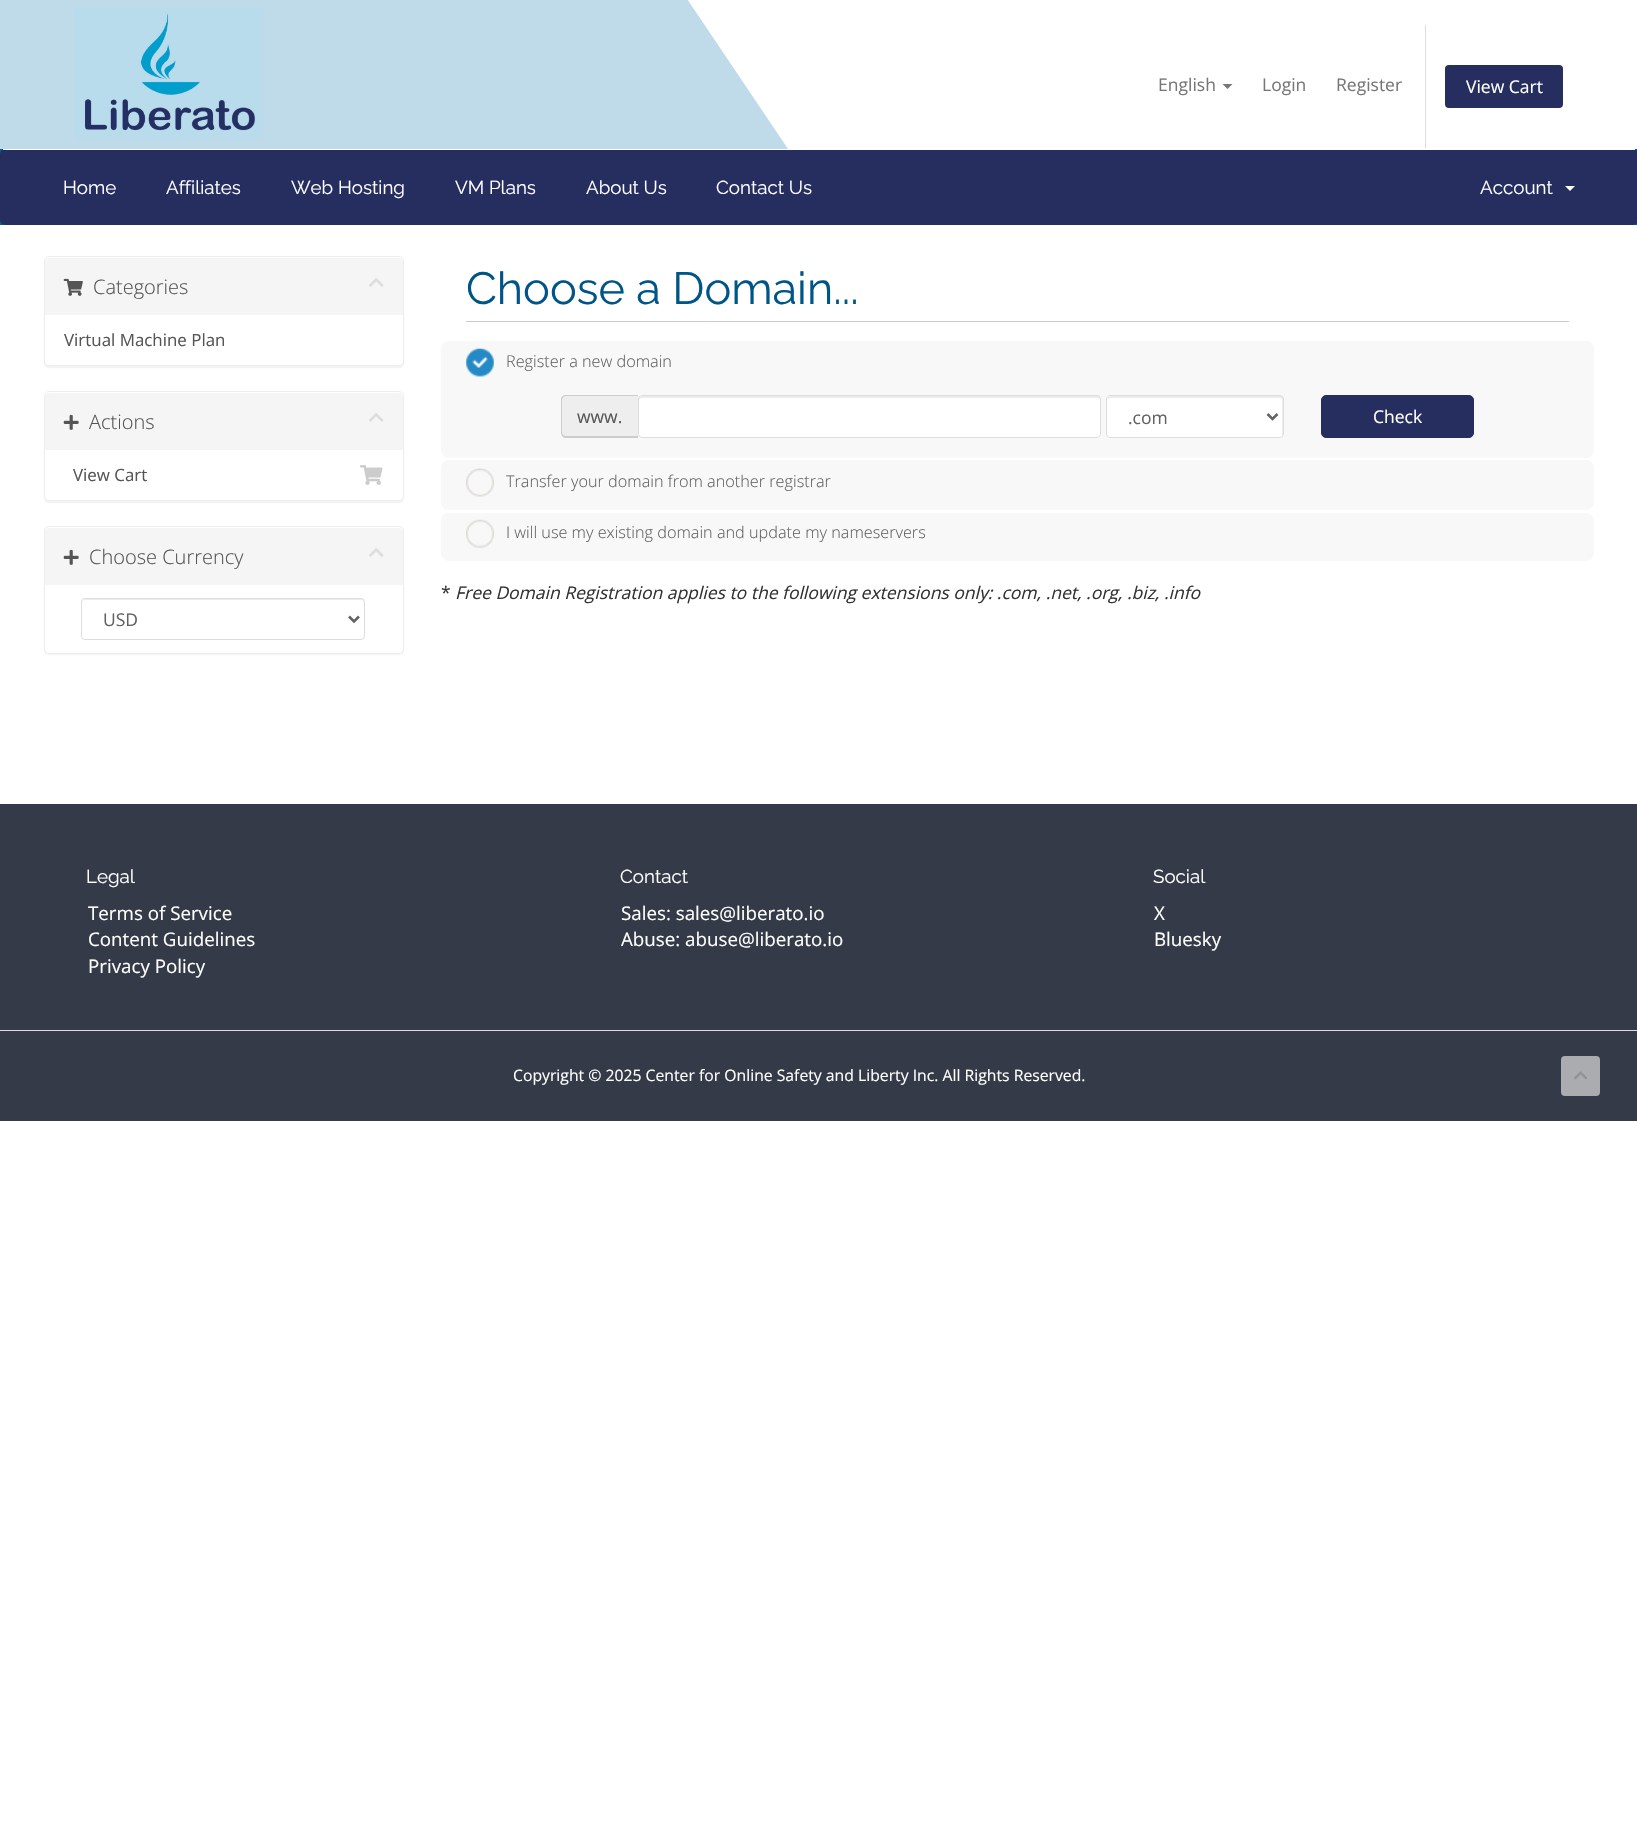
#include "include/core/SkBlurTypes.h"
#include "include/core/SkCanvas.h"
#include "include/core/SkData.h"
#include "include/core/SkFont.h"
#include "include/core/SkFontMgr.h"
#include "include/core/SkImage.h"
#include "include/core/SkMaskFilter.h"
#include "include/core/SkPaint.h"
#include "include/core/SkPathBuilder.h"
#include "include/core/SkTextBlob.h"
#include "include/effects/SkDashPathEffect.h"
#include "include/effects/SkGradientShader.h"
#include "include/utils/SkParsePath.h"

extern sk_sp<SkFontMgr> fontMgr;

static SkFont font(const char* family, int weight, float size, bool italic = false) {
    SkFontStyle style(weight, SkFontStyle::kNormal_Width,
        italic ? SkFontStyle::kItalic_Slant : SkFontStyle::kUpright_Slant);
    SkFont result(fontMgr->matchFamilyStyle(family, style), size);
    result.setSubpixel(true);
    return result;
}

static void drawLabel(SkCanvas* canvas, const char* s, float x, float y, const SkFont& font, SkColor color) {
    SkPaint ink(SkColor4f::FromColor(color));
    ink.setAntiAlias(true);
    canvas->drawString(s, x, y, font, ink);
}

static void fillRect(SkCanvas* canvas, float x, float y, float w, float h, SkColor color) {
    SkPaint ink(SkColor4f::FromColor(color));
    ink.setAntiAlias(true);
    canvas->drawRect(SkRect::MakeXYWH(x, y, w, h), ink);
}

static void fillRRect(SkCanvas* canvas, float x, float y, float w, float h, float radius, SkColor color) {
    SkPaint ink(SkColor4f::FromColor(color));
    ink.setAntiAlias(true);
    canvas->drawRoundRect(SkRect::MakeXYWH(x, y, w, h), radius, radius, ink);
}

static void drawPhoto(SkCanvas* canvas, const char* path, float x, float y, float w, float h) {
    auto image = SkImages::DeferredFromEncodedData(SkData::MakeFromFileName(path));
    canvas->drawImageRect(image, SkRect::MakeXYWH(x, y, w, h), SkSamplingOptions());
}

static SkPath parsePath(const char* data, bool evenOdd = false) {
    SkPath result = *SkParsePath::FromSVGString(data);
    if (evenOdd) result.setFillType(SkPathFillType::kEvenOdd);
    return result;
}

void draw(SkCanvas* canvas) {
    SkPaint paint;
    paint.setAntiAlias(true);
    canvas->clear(0xFFFFFFFF);
    canvas->save();
    canvas->clipRect(SkRect::MakeXYWH(0, 0, 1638, 149));
    paint.setColor(0xFFBFDBEA);
    canvas->drawPath(parsePath("M603-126L850 241L728 324L480-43Z"), paint);
    canvas->restore();
    fillRect(canvas, 0, 0, 610, 149, 0xFFBFDBEA);
    drawPhoto(canvas, "assets/img1.png", 75, 7, 188, 132);
    SkFont font1 = font("Open Sans", 400, 17.5f);
    drawLabel(canvas, "English", 1158, 91, font1, 0xFF777777);
    paint.setColor(0xFF777777);
    canvas->drawPath(parsePath("M1222.5 84H1232.5L1227.5 89Z"), paint);
    drawLabel(canvas, "Login", 1262, 91, font1, 0xFF777777);
    drawLabel(canvas, "Register", 1336, 91, font1, 0xFF777777);
    fillRect(canvas, 1425, 25, 1, 123, 0xFFDDDDDD);
    fillRRect(canvas, 1445, 65, 118, 43, 4, 0xFF262E60);
    drawLabel(canvas, "View Cart", 1466, 93, font1, 0xFFFFFFFF);
    fillRect(canvas, 0, 149, 1637, 76, 0xFF006687);
    fillRRect(canvas, 0, 149, 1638, 76, 5, 0xFF262E60);
    fillRect(canvas, 3, 149, 1632, 1, 0xFFFFFFFF);
    SkFont font2 = font("Raleway", 400, 18.75f);
    drawLabel(canvas, "Home", 63, 194, font2, 0xFFFFFFFF);
    drawLabel(canvas, "Affiliates", 166, 194, font2, 0xFFFFFFFF);
    drawLabel(canvas, "Web Hosting", 291, 194, font2, 0xFFFFFFFF);
    drawLabel(canvas, "VM Plans", 455, 194, font2, 0xFFFFFFFF);
    drawLabel(canvas, "About Us", 586, 194, font2, 0xFFFFFFFF);
    drawLabel(canvas, "Contact Us", 716, 194, font2, 0xFFFFFFFF);
    drawLabel(canvas, "Account", 1480, 194, font2, 0xFFFFFFFF);
    paint.setColor(0xFFFFFFFF);
    canvas->drawPath(parsePath("M1565 186H1575L1570 191Z"), paint);
    paint.setColor(0x0D000000);
    paint.setMaskFilter(SkMaskFilter::MakeBlur(kNormal_SkBlurStyle, 0.5f));
    canvas->drawRoundRect(SkRect::MakeXYWH(44, 258, 360, 110), 5, 5, paint);
    paint.setMaskFilter(nullptr);
    paint.setColor(0xFFFFFFFF);
    canvas->drawRoundRect(SkRect::MakeXYWH(44.5f, 256.5f, 359, 109), 4.5f, 4.5f, paint);
    paint.setStroke(true);
    paint.setStrokeWidth(1);
    paint.setColor(0xFFEEEEEE);
    canvas->drawRoundRect(SkRect::MakeXYWH(44.5f, 256.5f, 359, 109), 4.5f, 4.5f, paint);
    paint.setStroke(false);
    paint.setColor(0xFFF5F5F5);
    canvas->drawPath(parsePath("M49 258H399C401 258 403 260 403 262V315H45V262C45 260 47 258 49 258Z"), paint);
    drawPhoto(canvas, "assets/img2.png", 63, 278, 20, 18);
    SkFont font3 = font("Open Sans", 300, 20);
    drawLabel(canvas, "Categories", 93, 294, font3, 0xFF555555);
    drawPhoto(canvas, "assets/img3.png", 369, 278, 15, 9);
    paint.setColor(0xFFFFFFFF);
    canvas->drawPath(parsePath("M45 315H403V361C403 363 401 365 399 365H49C47 365 45 363 45 361Z"), paint);
    SkFont font4 = font("Open Sans", 400, 16.9f);
    drawLabel(canvas, "Virtual Machine Plan", 64, 346, font4, 0xFF555555);
    paint.setColor(0x0D000000);
    paint.setMaskFilter(SkMaskFilter::MakeBlur(kNormal_SkBlurStyle, 0.5f));
    canvas->drawRoundRect(SkRect::MakeXYWH(44, 393, 360, 110), 5, 5, paint);
    paint.setMaskFilter(nullptr);
    paint.setColor(0xFFFFFFFF);
    canvas->drawRoundRect(SkRect::MakeXYWH(44.5f, 391.5f, 359, 109), 4.5f, 4.5f, paint);
    paint.setStroke(true);
    paint.setColor(0xFFEEEEEE);
    canvas->drawRoundRect(SkRect::MakeXYWH(44.5f, 391.5f, 359, 109), 4.5f, 4.5f, paint);
    paint.setStroke(false);
    paint.setColor(0xFFF5F5F5);
    canvas->drawPath(parsePath("M49 393H399C401 393 403 395 403 397V450H45V397C45 395 47 393 49 393Z"), paint);
    drawPhoto(canvas, "assets/img4.png", 63, 414, 16, 16);
    drawLabel(canvas, "Actions", 89, 429, font3, 0xFF555555);
    drawPhoto(canvas, "assets/img3.png", 369, 413, 15, 9);
    paint.setColor(0xFFFFFFFF);
    canvas->drawPath(parsePath("M45 450H403V496C403 498 401 500 399 500H49C47 500 45 498 45 496Z"), paint);
    drawLabel(canvas, "View Cart", 73, 481, font4, 0xFF555555);
    drawPhoto(canvas, "assets/img5.png", 360, 465, 23, 20);
    paint.setColor(0x0D000000);
    paint.setMaskFilter(SkMaskFilter::MakeBlur(kNormal_SkBlurStyle, 0.5f));
    canvas->drawRoundRect(SkRect::MakeXYWH(44, 528, 360, 127), 5, 5, paint);
    paint.setMaskFilter(nullptr);
    paint.setColor(0xFFFFFFFF);
    canvas->drawRoundRect(SkRect::MakeXYWH(44.5f, 526.5f, 359, 127), 4.5f, 4.5f, paint);
    paint.setStroke(true);
    paint.setColor(0xFFEEEEEE);
    canvas->drawRoundRect(SkRect::MakeXYWH(44.5f, 526.5f, 359, 127), 4.5f, 4.5f, paint);
    paint.setStroke(false);
    paint.setColor(0xFFF5F5F5);
    canvas->drawPath(parsePath("M49 528H399C401 528 403 530 403 532V585H45V532C45 530 47 528 49 528Z"), paint);
    drawPhoto(canvas, "assets/img4.png", 63, 549, 16, 16);
    drawLabel(canvas, "Choose Currency", 89, 564, font3, 0xFF555555);
    drawPhoto(canvas, "assets/img3.png", 369, 548, 15, 9);
    paint.setColor(0xFFECECEC);
    canvas->drawPath(parsePath("M85 600H361C363 600 364 601 364 602C364 601 364 600 362 599H85L83 601Z"), paint);
    paint.setStroke(true);
    paint.setColor(0xFFDDDDDD);
    canvas->drawRoundRect(SkRect::MakeXYWH(81.5f, 598.5f, 283, 41), 3.5f, 3.5f, paint);
    paint.setStrokeWidth(2.5f);
    paint.setColor(0xFF626262);
    canvas->drawPath(parsePath("M349 616.5L354 621.5L359 616.5"), paint);
    drawLabel(canvas, "USD", 103, 626, font1, 0xFF626262);
    fillRect(canvas, 466, 321, 1103, 1, 0xFFCCCCCC);
    SkFont font5 = font("Raleway", 400, 45);
    drawLabel(canvas, "Choose a Domain...", 466, 304, font5, 0xFF005588);
    fillRRect(canvas, 441, 341, 1153, 117, 8, 0xFFF8F8F8);
    drawPhoto(canvas, "assets/img6.png", 466, 348, 28, 29);
    SkFont font6 = font("Open Sans", 300, 16.25f);
    drawLabel(canvas, "Register a new domain", 506, 367, font6, 0xFF626262);
    paint.setStroke(false);
    paint.setColor(0xFFEEEEEE);
    canvas->drawPath(parsePath("M566 395H638V438H566C563 438 561 436 561 433V400C561 397 563 395 566 395Z"), paint);
    paint.setColor(0xFFCCCCCC);
    canvas->drawPath(parsePath("M566 395H638V438H566C563 438 561 435 561 432V400C561 397 563 395 566 395ZM566 396H638V436H566C564 436 562 435 562 432V400C562 398 564 396 566 396Z", true), paint);
    drawLabel(canvas, "www.", 577, 423, font1, 0xFF555555);
    fillRRect(canvas, 638, 395, 463, 43, 4, 0xFFFFFFFF);
    paint.setColor(0xFFECECEC);
    canvas->drawPath(parsePath("M641 398H1098C1099 398 1100 399 1100 400C1100 398 1100 396 1098 396H642L639 397V400C639 399 640 398 641 398Z"), paint);
    paint.setStroke(true);
    paint.setStrokeWidth(1);
    paint.setColor(0xFFDDDDDD);
    canvas->drawRoundRect(SkRect::MakeXYWH(638.5f, 395.5f, 462, 42), 3.5f, 3.5f, paint);
    fillRRect(canvas, 1106, 395, 178, 43, 4, 0xFFFFFFFF);
    paint.setStroke(false);
    paint.setColor(0xFFECECEC);
    canvas->drawPath(parsePath("M1110 398H1280C1281 398 1282 399 1282 400V436C1283 435 1283 434 1283 434V398C1283 397 1282 396 1280 396H1110C1109 396 1108 397 1108 398V400C1108 399 1109 398 1110 398Z"), paint);
    paint.setStroke(true);
    paint.setColor(0xFFDDDDDD);
    canvas->drawRoundRect(SkRect::MakeXYWH(1106.5f, 395.5f, 177, 42), 3.5f, 3.5f, paint);
    paint.setStrokeWidth(2.5f);
    paint.setColor(0xFF626262);
    canvas->drawPath(parsePath("M1267.5 414L1272.5 419L1277.5 414"), paint);
    drawLabel(canvas, ".com", 1128, 424, font1, 0xFF626262);
    paint.setStroke(false);
    paint.setColor(0xFF262E60);
    canvas->drawRoundRect(SkRect::MakeXYWH(1321.5f, 395.5f, 152, 42), 4.5f, 4.5f, paint);
    paint.setStroke(true);
    paint.setStrokeWidth(1);
    canvas->drawRoundRect(SkRect::MakeXYWH(1321.5f, 395.5f, 152, 42), 4.5f, 4.5f, paint);
    drawLabel(canvas, "Check", 1373, 423, font1, 0xFFFFFFFF);
    fillRRect(canvas, 441, 460, 1153, 50, 8, 0xFFF8F8F8);
    drawPhoto(canvas, "assets/img7.png", 466, 468, 28, 29);
    drawLabel(canvas, "Transfer your domain from another registrar", 506, 487, font6, 0xFF626262);
    fillRRect(canvas, 441, 513, 1153, 48, 8, 0xFFF8F8F8);
    drawPhoto(canvas, "assets/img8.png", 466, 519, 28, 29);
    drawLabel(canvas, "I will use my existing domain and update my nameservers", 506, 538, font6, 0xFF626262);
    drawLabel(canvas, "*", 441, 599, font1, 0xFF333333);
    SkFont font7 = font("Open Sans", 400, 17.5f, true);
    drawLabel(canvas, "Free Domain Registration applies to the following extensions only: .com, .net, .org, .biz, .info", 455, 599, font7, 0xFF333333);
    fillRect(canvas, 0, 804, 1637, 226, 0xFF343A47);
    drawLabel(canvas, "Legal", 86, 883, font2, 0xFFFFFFFF);
    SkFont font8 = font("Open Sans", 400, 18.75f);
    drawLabel(canvas, "Terms of Service", 88, 920, font8, 0xFFFFFFFF);
    drawLabel(canvas, "Content Guidelines", 88, 946, font8, 0xFFFFFFFF);
    drawLabel(canvas, "Privacy Policy", 88, 973, font8, 0xFFFFFFFF);
    drawLabel(canvas, "Contact", 620, 883, font2, 0xFFFFFFFF);
    drawLabel(canvas, "Sales: sales@liberato.io", 621, 920, font8, 0xFFFFFFFF);
    drawLabel(canvas, "Abuse: abuse@liberato.io", 621, 946, font8, 0xFFFFFFFF);
    drawLabel(canvas, "Social", 1153, 883, font2, 0xFFFFFFFF);
    drawLabel(canvas, "X", 1154, 920, font8, 0xFFFFFFFF);
    drawLabel(canvas, "Bluesky", 1154, 946, font8, 0xFFFFFFFF);
    fillRect(canvas, 0, 1031, 1637, 90, 0xFF343A47);
    fillRect(canvas, 0, 1030, 1637, 1, 0xFFDDDDDD);
    SkFont font9 = font("Open Sans", 400, 15.75f);
    drawLabel(canvas, "Copyright © 2025 Center for Online Safety and Liberty Inc. All Rights Reserved.", 513, 1081, font9, 0xFFFFFFFF);
    fillRRect(canvas, 1561, 1056, 39, 40, 4, 0xFFAAACB0);
    drawPhoto(canvas, "assets/img9.png", 1574, 1071, 13, 9);
}
